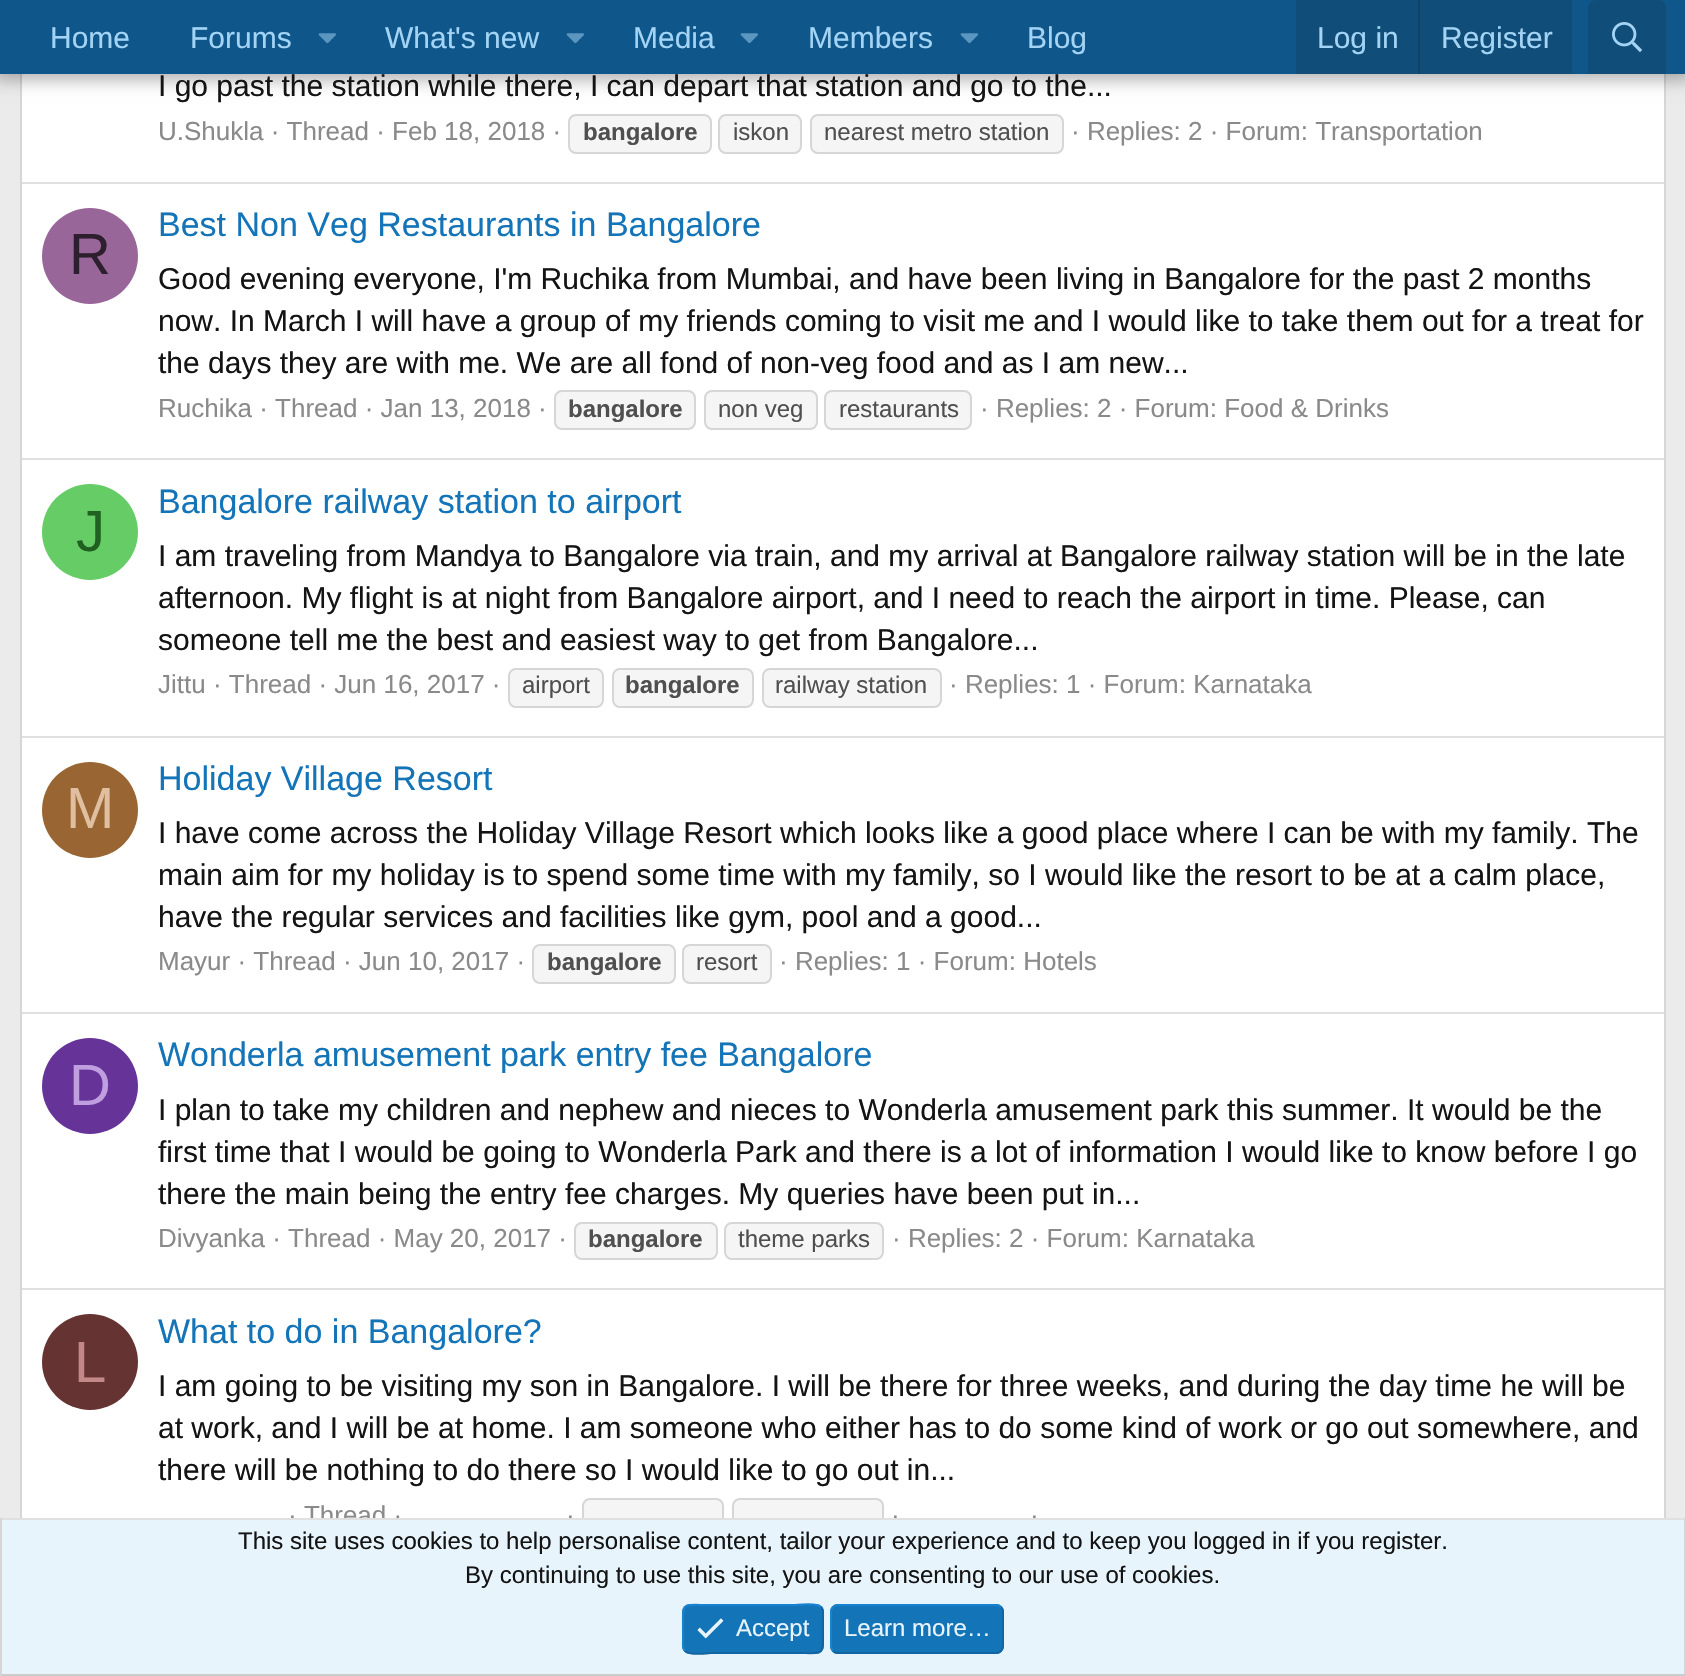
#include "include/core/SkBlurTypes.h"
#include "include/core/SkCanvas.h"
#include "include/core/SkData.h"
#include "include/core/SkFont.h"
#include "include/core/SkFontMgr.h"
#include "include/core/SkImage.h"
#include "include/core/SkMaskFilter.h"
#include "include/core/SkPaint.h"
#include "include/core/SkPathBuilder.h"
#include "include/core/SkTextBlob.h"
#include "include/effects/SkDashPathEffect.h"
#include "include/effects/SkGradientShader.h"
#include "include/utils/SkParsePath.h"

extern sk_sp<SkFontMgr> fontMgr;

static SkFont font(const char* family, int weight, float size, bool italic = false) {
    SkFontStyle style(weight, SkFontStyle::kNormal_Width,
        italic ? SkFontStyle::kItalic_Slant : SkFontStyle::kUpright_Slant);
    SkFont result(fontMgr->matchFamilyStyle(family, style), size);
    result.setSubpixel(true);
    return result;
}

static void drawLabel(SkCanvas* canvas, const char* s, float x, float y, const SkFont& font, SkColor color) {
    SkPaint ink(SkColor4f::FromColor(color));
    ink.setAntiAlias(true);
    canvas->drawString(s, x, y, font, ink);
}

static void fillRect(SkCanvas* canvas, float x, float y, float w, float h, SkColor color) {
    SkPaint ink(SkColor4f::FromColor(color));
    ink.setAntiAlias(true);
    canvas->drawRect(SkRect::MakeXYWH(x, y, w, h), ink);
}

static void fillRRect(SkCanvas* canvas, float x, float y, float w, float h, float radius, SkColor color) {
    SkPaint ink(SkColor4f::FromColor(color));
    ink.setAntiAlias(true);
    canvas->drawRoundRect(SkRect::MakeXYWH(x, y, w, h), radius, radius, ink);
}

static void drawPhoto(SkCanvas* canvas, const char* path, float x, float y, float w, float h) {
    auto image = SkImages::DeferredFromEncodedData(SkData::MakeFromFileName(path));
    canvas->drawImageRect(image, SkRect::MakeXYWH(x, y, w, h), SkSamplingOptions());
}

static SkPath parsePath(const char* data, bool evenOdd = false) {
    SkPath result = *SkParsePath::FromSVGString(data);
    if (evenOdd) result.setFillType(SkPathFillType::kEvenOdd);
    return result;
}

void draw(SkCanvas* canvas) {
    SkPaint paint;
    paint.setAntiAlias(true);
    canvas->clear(0xFFEBEBEB);
    fillRect(canvas, 22, 74, 1642, 1444, 0xFFFFFFFF);
    paint.setStroke(true);
    paint.setStrokeWidth(2);
    paint.setColor(0xFFD6D6D6);
    canvas->drawPath(parsePath("M1663-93C1664.5-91.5 1665-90 1665-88V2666C1665 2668 1664.5 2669.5 1663 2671"), paint);
    canvas->drawPath(parsePath("M23 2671C21.5 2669.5 21 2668 21 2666V-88C21-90 21.5-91.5 23-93"), paint);
    paint.setStroke(false);
    paint.setColor(0x4D000000);
    paint.setMaskFilter(SkMaskFilter::MakeBlur(kNormal_SkBlurStyle, 8));
    canvas->drawRect(SkRect::MakeXYWH(-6, -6, 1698, 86), paint);
    paint.setMaskFilter(nullptr);
    fillRect(canvas, 0, 0, 1685, 74, 0xFF0F578A);
    SkFont font1 = font("Liberation Sans", 400, 30);
    drawLabel(canvas, "Home", 50, 48, font1, 0xFFA3D4F5);
    drawLabel(canvas, "Forums", 190, 48, font1, 0xFFA3D4F5);
    drawPhoto(canvas, "assets/img1.png", 318, 33, 18, 11);
    drawLabel(canvas, "What's new", 385, 48, font1, 0xFFA3D4F5);
    drawPhoto(canvas, "assets/img1.png", 566, 33, 18, 11);
    drawLabel(canvas, "Media", 633, 48, font1, 0xFFA3D4F5);
    drawPhoto(canvas, "assets/img1.png", 740, 33, 18, 11);
    drawLabel(canvas, "Members", 808, 48, font1, 0xFFA3D4F5);
    drawPhoto(canvas, "assets/img1.png", 960, 33, 18, 11);
    drawLabel(canvas, "Blog", 1027, 48, font1, 0xFFA3D4F5);
    fillRect(canvas, 1296, 0, 276, 74, 0xFF104D78);
    drawLabel(canvas, "Log in", 1317, 48, font1, 0xFFA3D4F5);
    fillRect(canvas, 1418, 0, 2, 74, 0xFF114469);
    drawLabel(canvas, "Register", 1441, 48, font1, 0xFFA3D4F5);
    paint.setColor(0xFF104D78);
    canvas->drawPath(parsePath("M1596 0H1658C1662.5 0 1666 3.5 1666 8V74H1588V8C1588 3.5 1591.5 0 1596 0Z"), paint);
    drawPhoto(canvas, "assets/img2.png", 1612, 22, 30, 30);
    drawLabel(canvas, "I go past the station while there, I can depart that station and go to the...", 158, 96, font1, 0xFF141414);
    SkFont font2 = font("Liberation Sans", 400, 26);
    drawLabel(canvas, "U.Shukla · Thread · Feb 18, 2018 ·", 158, 140, font2, 0xFF8A8A8A);
    paint.setColor(0xFFF5F5F5);
    canvas->drawRoundRect(SkRect::MakeXYWH(569, 115, 142, 38), 7, 7, paint);
    paint.setStroke(true);
    paint.setColor(0xFFD6D6D6);
    canvas->drawRoundRect(SkRect::MakeXYWH(569, 115, 142, 38), 7, 7, paint);
    SkFont font3 = font("Liberation Sans", 700, 24);
    drawLabel(canvas, "bangalore", 583, 140, font3, 0xFF4F4F4F);
    paint.setStroke(false);
    paint.setColor(0xFFF5F5F5);
    canvas->drawRoundRect(SkRect::MakeXYWH(719, 115, 82, 38), 7, 7, paint);
    paint.setStroke(true);
    paint.setColor(0xFFD6D6D6);
    canvas->drawRoundRect(SkRect::MakeXYWH(719, 115, 82, 38), 7, 7, paint);
    SkFont font4 = font("Liberation Sans", 400, 24);
    drawLabel(canvas, "iskon", 733, 140, font4, 0xFF4F4F4F);
    paint.setStroke(false);
    paint.setColor(0xFFF5F5F5);
    canvas->drawRoundRect(SkRect::MakeXYWH(811, 115, 252, 38), 7, 7, paint);
    paint.setStroke(true);
    paint.setColor(0xFFD6D6D6);
    canvas->drawRoundRect(SkRect::MakeXYWH(811, 115, 252, 38), 7, 7, paint);
    drawLabel(canvas, "nearest metro station", 824, 140, font4, 0xFF4F4F4F);
    drawLabel(canvas, "· Replies: 2 · Forum: Transportation", 1071, 140, font2, 0xFF8A8A8A);
    fillRect(canvas, 22, 182, 1642, 2, 0xFFE0E0E0);
    paint.setStroke(false);
    paint.setColor(0xFF996699);
    canvas->drawCircle(90, 256, 48, paint);
    SkFont font5 = font("Liberation Sans", 400, 58);
    drawLabel(canvas, "R", 69, 274, font5, 0xFF2E1F2E);
    SkFont font6 = font("Liberation Sans", 400, 34);
    drawLabel(canvas, "Best Non Veg Restaurants in Bangalore", 158, 236, font6, 0xFF1474B8);
    drawLabel(canvas, "Good evening everyone, I'm Ruchika from Mumbai, and have been living in Bangalore for the past 2 months", 158, 289, font1, 0xFF141414);
    drawLabel(canvas, "now. In March I will have a group of my friends coming to visit me and I would like to take them out for a treat for", 158, 331, font1, 0xFF141414);
    drawLabel(canvas, "the days they are with me. We are all fond of non-veg food and as I am new...", 158, 373, font1, 0xFF141414);
    drawLabel(canvas, "Ruchika · Thread · Jan 13, 2018 ·", 158, 417, font2, 0xFF8A8A8A);
    paint.setColor(0xFFF5F5F5);
    canvas->drawRoundRect(SkRect::MakeXYWH(555, 391, 140, 38), 7, 7, paint);
    paint.setStroke(true);
    paint.setColor(0xFFD6D6D6);
    canvas->drawRoundRect(SkRect::MakeXYWH(555, 391, 140, 38), 7, 7, paint);
    drawLabel(canvas, "bangalore", 568, 417, font3, 0xFF4F4F4F);
    paint.setStroke(false);
    paint.setColor(0xFFF5F5F5);
    canvas->drawRoundRect(SkRect::MakeXYWH(705, 391, 112, 38), 7, 7, paint);
    paint.setStroke(true);
    paint.setColor(0xFFD6D6D6);
    canvas->drawRoundRect(SkRect::MakeXYWH(705, 391, 112, 38), 7, 7, paint);
    drawLabel(canvas, "non veg", 718, 417, font4, 0xFF4F4F4F);
    paint.setStroke(false);
    paint.setColor(0xFFF5F5F5);
    canvas->drawRoundRect(SkRect::MakeXYWH(825, 391, 146, 38), 7, 7, paint);
    paint.setStroke(true);
    paint.setColor(0xFFD6D6D6);
    canvas->drawRoundRect(SkRect::MakeXYWH(825, 391, 146, 38), 7, 7, paint);
    drawLabel(canvas, "restaurants", 839, 417, font4, 0xFF4F4F4F);
    drawLabel(canvas, "· Replies: 2 · Forum: Food & Drinks", 980, 417, font2, 0xFF8A8A8A);
    fillRect(canvas, 22, 458, 1642, 2, 0xFFE0E0E0);
    paint.setStroke(false);
    paint.setColor(0xFF66CC66);
    canvas->drawCircle(90, 532, 48, paint);
    drawLabel(canvas, "J", 76, 551, font5, 0xFF206020);
    drawLabel(canvas, "Bangalore railway station to airport", 158, 513, font6, 0xFF1474B8);
    drawLabel(canvas, "I am traveling from Mandya to Bangalore via train, and my arrival at Bangalore railway station will be in the late", 158, 566, font1, 0xFF141414);
    drawLabel(canvas, "afternoon. My flight is at night from Bangalore airport, and I need to reach the airport in time. Please, can", 158, 608, font1, 0xFF141414);
    drawLabel(canvas, "someone tell me the best and easiest way to get from Bangalore...", 158, 650, font1, 0xFF141414);
    drawLabel(canvas, "Jittu · Thread · Jun 16, 2017 ·", 158, 693, font2, 0xFF8A8A8A);
    paint.setColor(0xFFF5F5F5);
    canvas->drawRoundRect(SkRect::MakeXYWH(509, 669, 94, 38), 7, 7, paint);
    paint.setStroke(true);
    paint.setColor(0xFFD6D6D6);
    canvas->drawRoundRect(SkRect::MakeXYWH(509, 669, 94, 38), 7, 7, paint);
    drawLabel(canvas, "airport", 522, 693, font4, 0xFF4F4F4F);
    paint.setStroke(false);
    paint.setColor(0xFFF5F5F5);
    canvas->drawRoundRect(SkRect::MakeXYWH(613, 669, 140, 38), 7, 7, paint);
    paint.setStroke(true);
    paint.setColor(0xFFD6D6D6);
    canvas->drawRoundRect(SkRect::MakeXYWH(613, 669, 140, 38), 7, 7, paint);
    drawLabel(canvas, "bangalore", 625, 693, font3, 0xFF4F4F4F);
    paint.setStroke(false);
    paint.setColor(0xFFF5F5F5);
    canvas->drawRoundRect(SkRect::MakeXYWH(763, 669, 178, 38), 7, 7, paint);
    paint.setStroke(true);
    paint.setColor(0xFFD6D6D6);
    canvas->drawRoundRect(SkRect::MakeXYWH(763, 669, 178, 38), 7, 7, paint);
    drawLabel(canvas, "railway station", 775, 693, font4, 0xFF4F4F4F);
    drawLabel(canvas, "· Replies: 1 · Forum: Karnataka", 949, 693, font2, 0xFF8A8A8A);
    fillRect(canvas, 22, 736, 1642, 2, 0xFFE0E0E0);
    paint.setStroke(false);
    paint.setColor(0xFF996633);
    canvas->drawCircle(90, 810, 48, paint);
    drawLabel(canvas, "M", 66, 828, font5, 0xFFDFBF9F);
    drawLabel(canvas, "Holiday Village Resort", 158, 790, font6, 0xFF1474B8);
    drawLabel(canvas, "I have come across the Holiday Village Resort which looks like a good place where I can be with my family. The", 158, 843, font1, 0xFF141414);
    drawLabel(canvas, "main aim for my holiday is to spend some time with my family, so I would like the resort to be at a calm place,", 158, 885, font1, 0xFF141414);
    drawLabel(canvas, "have the regular services and facilities like gym, pool and a good...", 158, 927, font1, 0xFF141414);
    drawLabel(canvas, "Mayur · Thread · Jun 10, 2017 ·", 158, 970, font2, 0xFF8A8A8A);
    paint.setColor(0xFFF5F5F5);
    canvas->drawRoundRect(SkRect::MakeXYWH(533, 945, 142, 38), 7, 7, paint);
    paint.setStroke(true);
    paint.setColor(0xFFD6D6D6);
    canvas->drawRoundRect(SkRect::MakeXYWH(533, 945, 142, 38), 7, 7, paint);
    drawLabel(canvas, "bangalore", 547, 970, font3, 0xFF4F4F4F);
    paint.setStroke(false);
    paint.setColor(0xFFF5F5F5);
    canvas->drawRoundRect(SkRect::MakeXYWH(683, 945, 88, 38), 7, 7, paint);
    paint.setStroke(true);
    paint.setColor(0xFFD6D6D6);
    canvas->drawRoundRect(SkRect::MakeXYWH(683, 945, 88, 38), 7, 7, paint);
    drawLabel(canvas, "resort", 696, 970, font4, 0xFF4F4F4F);
    drawLabel(canvas, "· Replies: 1 · Forum: Hotels", 779, 970, font2, 0xFF8A8A8A);
    fillRect(canvas, 22, 1012, 1642, 2, 0xFFE0E0E0);
    paint.setStroke(false);
    paint.setColor(0xFF663399);
    canvas->drawCircle(90, 1086, 48, paint);
    drawLabel(canvas, "D", 69, 1105, font5, 0xFFBF9FDF);
    drawLabel(canvas, "Wonderla amusement park entry fee Bangalore", 158, 1066, font6, 0xFF1474B8);
    drawLabel(canvas, "I plan to take my children and nephew and nieces to Wonderla amusement park this summer. It would be the", 158, 1120, font1, 0xFF141414);
    drawLabel(canvas, "first time that I would be going to Wonderla Park and there is a lot of information I would like to know before I go", 158, 1162, font1, 0xFF141414);
    drawLabel(canvas, "there the main being the entry fee charges. My queries have been put in...", 158, 1204, font1, 0xFF141414);
    drawLabel(canvas, "Divyanka · Thread · May 20, 2017 ·", 158, 1247, font2, 0xFF8A8A8A);
    paint.setColor(0xFFF5F5F5);
    canvas->drawRoundRect(SkRect::MakeXYWH(575, 1223, 142, 36), 7, 7, paint);
    paint.setStroke(true);
    paint.setColor(0xFFD6D6D6);
    canvas->drawRoundRect(SkRect::MakeXYWH(575, 1223, 142, 36), 7, 7, paint);
    drawLabel(canvas, "bangalore", 588, 1247, font3, 0xFF4F4F4F);
    paint.setStroke(false);
    paint.setColor(0xFFF5F5F5);
    canvas->drawRoundRect(SkRect::MakeXYWH(725, 1223, 158, 36), 7, 7, paint);
    paint.setStroke(true);
    paint.setColor(0xFFD6D6D6);
    canvas->drawRoundRect(SkRect::MakeXYWH(725, 1223, 158, 36), 7, 7, paint);
    drawLabel(canvas, "theme parks", 738, 1247, font4, 0xFF4F4F4F);
    drawLabel(canvas, "· Replies: 2 · Forum: Karnataka", 892, 1247, font2, 0xFF8A8A8A);
    fillRect(canvas, 22, 1288, 1642, 2, 0xFFE0E0E0);
    paint.setStroke(false);
    paint.setColor(0xFF663333);
    canvas->drawCircle(90, 1362, 48, paint);
    drawLabel(canvas, "L", 74, 1382, font5, 0xFFC38888);
    drawLabel(canvas, "What to do in Bangalore?", 158, 1343, font6, 0xFF1474B8);
    drawLabel(canvas, "I am going to be visiting my son in Bangalore. I will be there for three weeks, and during the day time he will be", 158, 1396, font1, 0xFF141414);
    drawLabel(canvas, "at work, and I will be at home. I am someone who either has to do some kind of work or go out somewhere, and", 158, 1438, font1, 0xFF141414);
    drawLabel(canvas, "there will be nothing to do there so I would like to go out in...", 158, 1480, font1, 0xFF141414);
    drawLabel(canvas, "· Thread ·", 288, 1524, font2, 0xFF8A8A8A);
    drawLabel(canvas, "·", 566, 1524, font2, 0xFF8A8A8A);
    paint.setColor(0xFFF5F5F5);
    canvas->drawRoundRect(SkRect::MakeXYWH(583, 1499, 140, 38), 7, 7, paint);
    paint.setStroke(true);
    paint.setColor(0xFFD6D6D6);
    canvas->drawRoundRect(SkRect::MakeXYWH(583, 1499, 140, 38), 7, 7, paint);
    paint.setStroke(false);
    paint.setColor(0xFFF5F5F5);
    canvas->drawRoundRect(SkRect::MakeXYWH(733, 1499, 150, 38), 7, 7, paint);
    paint.setStroke(true);
    paint.setColor(0xFFD6D6D6);
    canvas->drawRoundRect(SkRect::MakeXYWH(733, 1499, 150, 38), 7, 7, paint);
    drawLabel(canvas, "·", 891, 1524, font2, 0xFF8A8A8A);
    drawLabel(canvas, "·", 1030, 1524, font2, 0xFF8A8A8A);
    fillRect(canvas, 2, 1520, 1682, 154, 0xFFE8F4FC);
    fillRect(canvas, 0, 1518, 1685, 2, 0xFFE0E0E0);
    fillRect(canvas, 1684, 1518, 1, 158, 0xFFD6D6D6);
    fillRect(canvas, 0, 1674, 1685, 2, 0xFFCCCCCC);
    fillRect(canvas, 0, 1518, 2, 158, 0xFFD6D6D6);
    drawLabel(canvas, "This site uses cookies to help personalise content, tailor your experience and to keep you logged in if you register.", 238, 1549, font4, 0xFF141414);
    drawLabel(canvas, "By continuing to use this site, you are consenting to our use of cookies.", 465, 1583, font4, 0xFF141414);
    fillRRect(canvas, 682, 1604, 142, 50, 8, 0xFF1474B8);
    paint.setColor(0xFF1265A1);
    canvas->drawPath(parsePath("M821 1607C824 1610 823 1614 823 1617.5V1629C823 1657 825.5 1653 795 1653H711C709 1653 690 1656 685 1651"), paint);
    paint.setColor(0xFF1782CF);
    canvas->drawPath(parsePath("M685 1651C682 1648 683 1644 683 1640.5V1629C683 1601 680.5 1605 711 1605H795C797 1605 816 1602 821 1607"), paint);
    drawPhoto(canvas, "assets/img3.png", 697, 1618, 27, 21);
    drawLabel(canvas, "Accept", 736, 1636, font4, 0xFFE8F4FC);
    fillRRect(canvas, 830, 1604, 174, 50, 8, 0xFF1474B8);
    paint.setColor(0xFF1265A1);
    canvas->drawPath(parsePath("M1001 1607C1002.5 1608.5 1003 1610 1003 1612V1646C1003 1648 1002.5 1649.5 1001 1651C999.5 1652.5 998 1653 996 1653H838C836 1653 834.5 1652.5 833 1651"), paint);
    paint.setColor(0xFF1782CF);
    canvas->drawPath(parsePath("M833 1651C831.5 1649.5 831 1648 831 1646V1612C831 1610 831.5 1608.5 833 1607C834.5 1605.5 836 1605 838 1605H996C998 1605 999.5 1605.5 1001 1607"), paint);
    drawLabel(canvas, "Learn more…", 844, 1636, font4, 0xFFE8F4FC);
}
